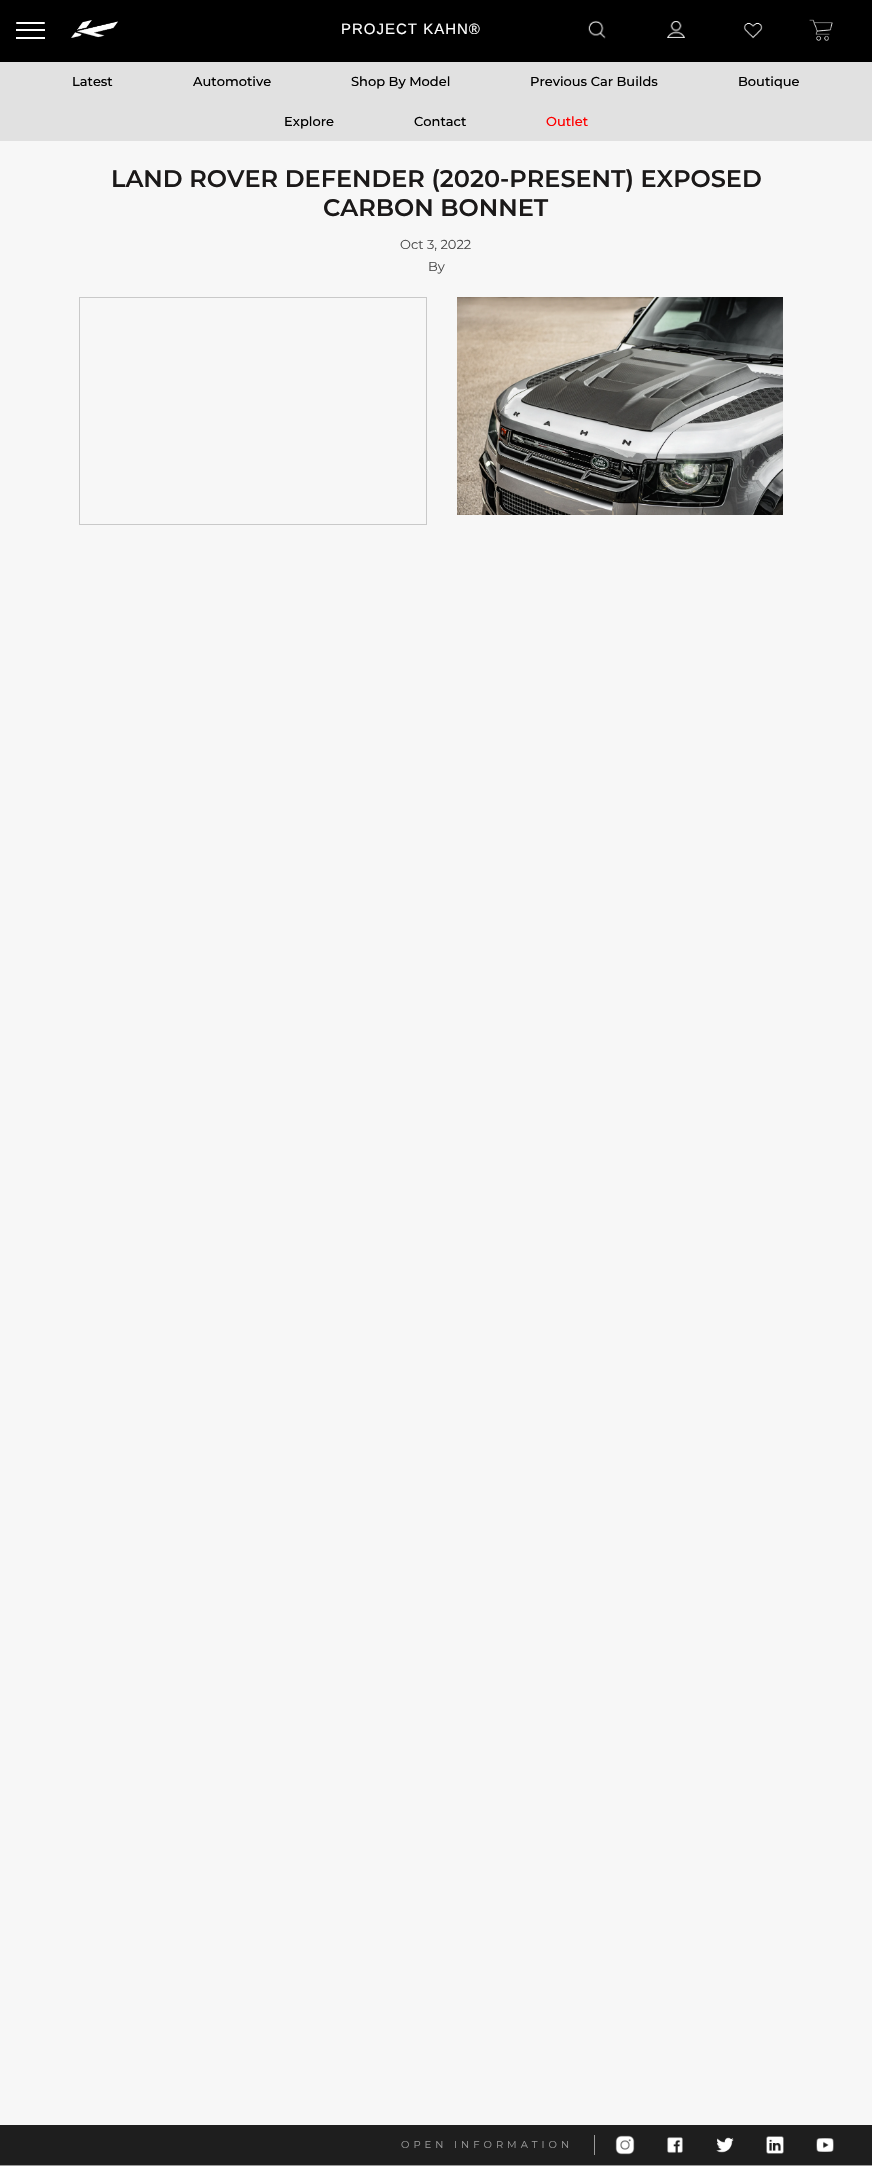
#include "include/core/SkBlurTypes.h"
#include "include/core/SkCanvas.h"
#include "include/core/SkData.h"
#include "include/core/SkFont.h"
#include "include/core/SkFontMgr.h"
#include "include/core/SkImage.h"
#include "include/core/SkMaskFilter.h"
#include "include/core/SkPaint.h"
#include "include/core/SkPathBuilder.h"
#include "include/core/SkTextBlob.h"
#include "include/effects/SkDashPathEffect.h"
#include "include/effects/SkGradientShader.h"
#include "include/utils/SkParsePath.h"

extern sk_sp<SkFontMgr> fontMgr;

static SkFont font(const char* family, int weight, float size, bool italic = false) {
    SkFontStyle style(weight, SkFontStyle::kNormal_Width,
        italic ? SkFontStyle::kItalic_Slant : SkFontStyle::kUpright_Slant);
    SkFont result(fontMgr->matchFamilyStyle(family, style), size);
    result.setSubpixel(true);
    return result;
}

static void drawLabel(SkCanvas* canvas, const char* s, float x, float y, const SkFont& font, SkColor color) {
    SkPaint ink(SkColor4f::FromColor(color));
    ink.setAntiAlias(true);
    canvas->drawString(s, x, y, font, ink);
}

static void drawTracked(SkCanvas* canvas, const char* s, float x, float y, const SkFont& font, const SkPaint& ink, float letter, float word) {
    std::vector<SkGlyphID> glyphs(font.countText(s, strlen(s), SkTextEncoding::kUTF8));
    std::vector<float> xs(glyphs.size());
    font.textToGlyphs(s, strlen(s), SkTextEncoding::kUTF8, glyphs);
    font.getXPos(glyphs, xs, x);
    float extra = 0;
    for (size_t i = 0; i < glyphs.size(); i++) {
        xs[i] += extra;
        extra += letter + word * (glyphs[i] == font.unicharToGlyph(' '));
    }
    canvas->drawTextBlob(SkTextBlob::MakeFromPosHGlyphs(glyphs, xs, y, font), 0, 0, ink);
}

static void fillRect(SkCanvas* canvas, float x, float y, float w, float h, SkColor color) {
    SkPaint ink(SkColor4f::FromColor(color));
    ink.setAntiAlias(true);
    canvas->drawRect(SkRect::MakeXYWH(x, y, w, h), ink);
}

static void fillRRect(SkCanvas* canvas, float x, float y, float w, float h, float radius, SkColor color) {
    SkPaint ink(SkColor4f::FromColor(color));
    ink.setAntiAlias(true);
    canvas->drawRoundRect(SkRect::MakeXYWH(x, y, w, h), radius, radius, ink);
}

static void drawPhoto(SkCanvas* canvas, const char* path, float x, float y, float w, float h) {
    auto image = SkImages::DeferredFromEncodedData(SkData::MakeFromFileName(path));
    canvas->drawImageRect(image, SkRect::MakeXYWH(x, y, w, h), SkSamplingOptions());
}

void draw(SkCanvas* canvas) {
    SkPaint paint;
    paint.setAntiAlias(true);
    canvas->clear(0xFFF7F7F7);
    fillRect(canvas, 0, 0, 872, 62, 0xFF000000);
    fillRRect(canvas, 16, 22, 29, 2, 1, 0xFFFFFFFF);
    fillRect(canvas, 16, 29, 29, 2, 0xFFFFFFFF);
    fillRect(canvas, 16, 37, 29, 2, 0xFFFFFFFF);
    drawPhoto(canvas, "assets/img1.png", 71, 20, 47, 18);
    SkFont font1 = font("Liberation Sans", 400, 15);
    paint.setColor(0xFFFFFFFF);
    drawTracked(canvas, "PROJECT KAHN®", 341, 34, font1, paint, 1, 0);
    drawPhoto(canvas, "assets/img2.png", 588, 20, 18, 19);
    drawPhoto(canvas, "assets/img3.png", 667, 21, 18, 17);
    drawPhoto(canvas, "assets/img4.png", 743, 22, 20, 17);
    drawPhoto(canvas, "assets/img5.png", 809, 19, 24, 22);
    fillRect(canvas, 0, 62, 872, 79, 0xFFE1E1E1);
    SkFont font2 = font("Montserrat", 500, 13);
    drawLabel(canvas, "Latest", 72, 86, font2, 0xFF000000);
    drawLabel(canvas, "Automotive", 193, 86, font2, 0xFF000000);
    drawLabel(canvas, "Shop By Model", 351, 86, font2, 0xFF000000);
    drawLabel(canvas, "Previous Car Builds", 530, 86, font2, 0xFF000000);
    drawLabel(canvas, "Boutique", 738, 86, font2, 0xFF000000);
    drawLabel(canvas, "Explore", 284, 126, font2, 0xFF000000);
    drawLabel(canvas, "Contact", 414, 126, font2, 0xFF000000);
    drawLabel(canvas, "Outlet", 546, 126, font2, 0xFFFF0000);
    SkFont font3 = font("Montserrat", 600, 24);
    drawLabel(canvas, "LAND ROVER DEFENDER (2020-PRESENT) EXPOSED", 111, 187, font3, 0xFF1B1919);
    drawLabel(canvas, "CARBON BONNET", 323, 216, font3, 0xFF1B1919);
    SkFont font4 = font("Montserrat", 400, 13);
    drawLabel(canvas, "Oct 3, 2022", 400, 249, font4, 0xFF4C4C4C);
    drawLabel(canvas, "By", 428, 271, font4, 0xFF4C4C4C);
    paint.setStroke(true);
    paint.setStrokeWidth(1);
    paint.setColor(0xFFC9C9C9);
    canvas->drawRect(SkRect::MakeXYWH(79.5f, 297.5f, 347, 227), paint);
    drawPhoto(canvas, "assets/img6.png", 457, 297, 326, 218);
    fillRect(canvas, 0, 2125, 872, 40, 0xFF1E1E1E);
    fillRect(canvas, 0, 2165, 872, 1, 0xFF9B9B9B);
    SkFont font5 = font("Montserrat", 400, 10);
    paint.setStroke(false);
    paint.setColor(0xFF9B9B9B);
    drawTracked(canvas, "OPEN INFORMATION", 401, 2148, font5, paint, 4, 0);
    fillRect(canvas, 594, 2135, 1, 20, 0xFF9B9B9B);
    drawPhoto(canvas, "assets/img7.png", 615, 2135, 20, 20);
    drawPhoto(canvas, "assets/img8.png", 667, 2137, 16, 16);
    drawPhoto(canvas, "assets/img9.png", 716, 2137, 18, 16);
    drawPhoto(canvas, "assets/img10.png", 766, 2136, 18, 18);
    drawPhoto(canvas, "assets/img11.png", 816, 2138, 18, 14);
}
